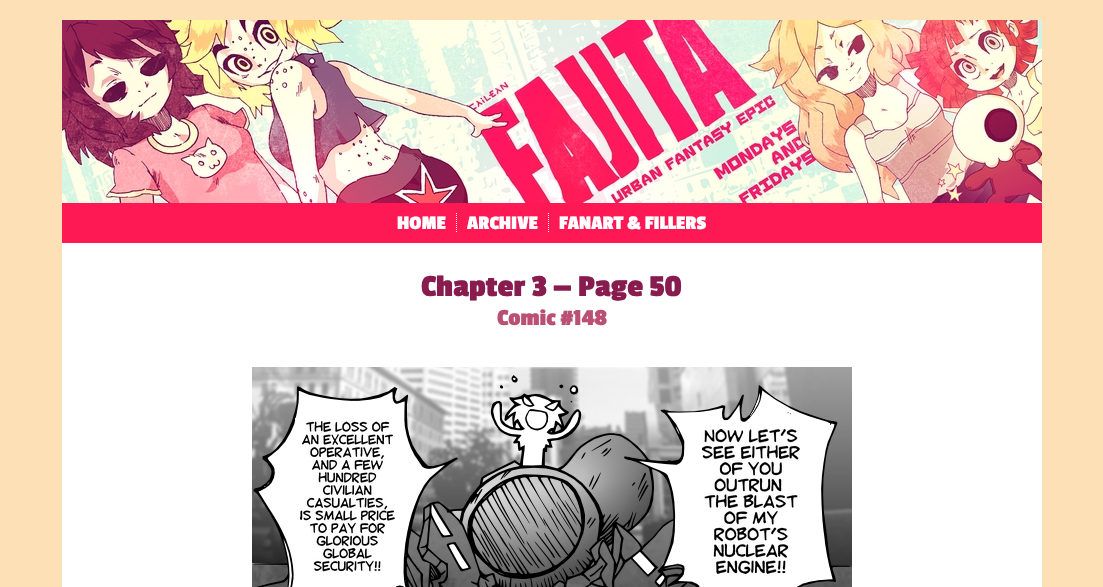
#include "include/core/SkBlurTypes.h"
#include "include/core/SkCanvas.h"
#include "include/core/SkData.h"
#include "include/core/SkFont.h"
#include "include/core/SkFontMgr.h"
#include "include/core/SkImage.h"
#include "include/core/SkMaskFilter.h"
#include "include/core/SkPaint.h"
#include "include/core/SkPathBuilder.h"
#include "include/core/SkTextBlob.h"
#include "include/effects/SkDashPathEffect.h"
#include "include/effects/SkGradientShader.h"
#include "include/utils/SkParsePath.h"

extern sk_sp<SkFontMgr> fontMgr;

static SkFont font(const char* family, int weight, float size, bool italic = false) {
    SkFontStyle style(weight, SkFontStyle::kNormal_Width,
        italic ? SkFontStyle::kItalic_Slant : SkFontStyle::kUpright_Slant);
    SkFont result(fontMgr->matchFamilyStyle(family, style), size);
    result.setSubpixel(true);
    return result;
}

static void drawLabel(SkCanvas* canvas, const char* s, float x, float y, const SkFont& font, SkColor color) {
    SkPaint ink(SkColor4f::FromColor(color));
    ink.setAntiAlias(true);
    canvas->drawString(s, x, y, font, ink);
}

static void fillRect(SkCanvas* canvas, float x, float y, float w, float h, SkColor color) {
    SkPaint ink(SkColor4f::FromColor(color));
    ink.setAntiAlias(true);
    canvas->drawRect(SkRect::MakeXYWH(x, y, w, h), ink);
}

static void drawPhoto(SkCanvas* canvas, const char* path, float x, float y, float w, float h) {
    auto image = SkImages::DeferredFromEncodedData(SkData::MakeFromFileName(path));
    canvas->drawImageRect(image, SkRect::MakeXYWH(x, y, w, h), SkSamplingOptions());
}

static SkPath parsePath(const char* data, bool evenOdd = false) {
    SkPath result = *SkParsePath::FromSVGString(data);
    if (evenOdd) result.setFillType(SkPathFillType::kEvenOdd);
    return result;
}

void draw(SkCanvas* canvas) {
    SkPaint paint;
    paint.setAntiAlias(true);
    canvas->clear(0xFFFDE0B5);
    fillRect(canvas, 62, 243, 980, 344, 0xFFFFFFFF);
    fillRect(canvas, 62, 203, 980, 40, 0xFFFE1955);
    drawPhoto(canvas, "assets/img1.png", 62, 20, 980, 183);
    SkFont font1 = font("Passion One", 700, 20);
    drawLabel(canvas, "HOME", 397, 229, font1, 0xFFFFFFFF);
    paint.setStroke(true);
    paint.setStrokeWidth(1);
    paint.setColor(0xFFFFFFFF);
    paint.setPathEffect(SkDashPathEffect::Make({{1, 1}}, 0));
    canvas->drawPath(parsePath("M456.5 213V233"), paint);
    paint.setPathEffect(nullptr);
    drawLabel(canvas, "ARCHIVE", 467, 229, font1, 0xFFFFFFFF);
    paint.setPathEffect(SkDashPathEffect::Make({{1, 1}}, 0));
    canvas->drawPath(parsePath("M548.5 213V233"), paint);
    paint.setPathEffect(nullptr);
    drawLabel(canvas, "FANART & FILLERS", 559, 229, font1, 0xFFFFFFFF);
    SkFont font2 = font("Passion One", 700, 32);
    drawLabel(canvas, "Chapter 3 — Page 50", 421, 296, font2, 0xFF881C4E);
    SkFont font3 = font("Passion One", 700, 24);
    drawLabel(canvas, "Comic #148", 497, 325, font3, 0xFFBA5074);
    drawPhoto(canvas, "assets/img2.png", 252, 367, 600, 220);
}
